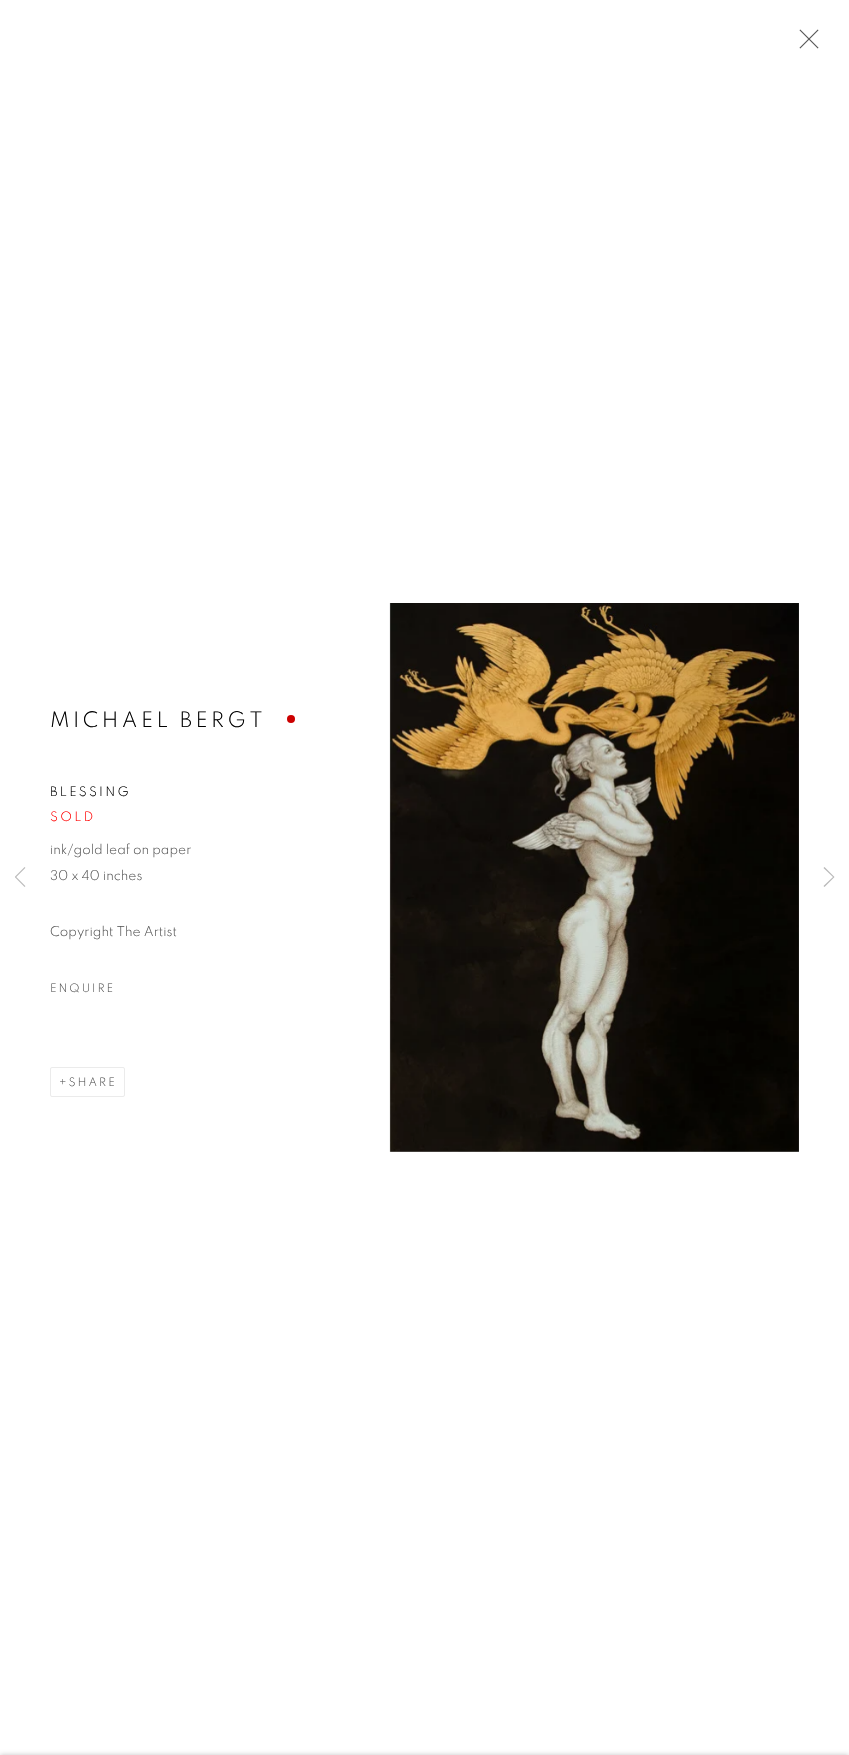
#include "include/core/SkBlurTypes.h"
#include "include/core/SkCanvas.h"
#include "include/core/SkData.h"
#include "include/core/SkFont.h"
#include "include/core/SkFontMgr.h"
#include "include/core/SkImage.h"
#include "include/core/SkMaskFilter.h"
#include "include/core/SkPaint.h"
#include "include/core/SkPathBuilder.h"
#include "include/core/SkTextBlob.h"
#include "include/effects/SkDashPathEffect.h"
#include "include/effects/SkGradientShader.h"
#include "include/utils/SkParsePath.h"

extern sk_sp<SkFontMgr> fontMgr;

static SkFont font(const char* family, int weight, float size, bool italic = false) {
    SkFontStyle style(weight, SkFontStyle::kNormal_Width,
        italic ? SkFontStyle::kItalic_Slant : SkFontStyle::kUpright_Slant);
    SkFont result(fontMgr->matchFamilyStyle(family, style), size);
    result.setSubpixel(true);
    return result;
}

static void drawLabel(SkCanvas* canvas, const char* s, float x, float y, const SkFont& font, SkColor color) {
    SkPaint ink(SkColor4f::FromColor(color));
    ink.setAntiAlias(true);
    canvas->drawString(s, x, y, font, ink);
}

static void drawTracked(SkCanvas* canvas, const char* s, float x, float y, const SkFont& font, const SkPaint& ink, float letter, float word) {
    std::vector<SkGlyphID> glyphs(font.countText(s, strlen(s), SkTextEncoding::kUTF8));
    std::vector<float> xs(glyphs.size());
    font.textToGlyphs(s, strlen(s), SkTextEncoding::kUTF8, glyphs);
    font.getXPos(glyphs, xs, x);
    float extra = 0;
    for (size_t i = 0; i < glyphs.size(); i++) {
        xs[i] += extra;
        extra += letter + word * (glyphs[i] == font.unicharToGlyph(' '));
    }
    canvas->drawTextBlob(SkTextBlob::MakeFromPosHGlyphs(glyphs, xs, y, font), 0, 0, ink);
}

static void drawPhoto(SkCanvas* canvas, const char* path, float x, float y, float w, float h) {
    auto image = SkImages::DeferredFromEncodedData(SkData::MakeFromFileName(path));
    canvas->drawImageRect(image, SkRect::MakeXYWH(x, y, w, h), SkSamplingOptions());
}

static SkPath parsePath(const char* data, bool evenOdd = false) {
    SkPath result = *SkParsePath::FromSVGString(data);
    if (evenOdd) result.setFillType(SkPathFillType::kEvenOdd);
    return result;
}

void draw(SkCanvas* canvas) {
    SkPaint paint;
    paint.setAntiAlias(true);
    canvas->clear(0xFFFFFFFF);
    drawPhoto(canvas, "assets/img1.png", 799, 29, 20, 20);
    SkFont font1 = font("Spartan", 300, 22);
    paint.setColor(0xFF010101);
    drawTracked(canvas, "MICHAEL BERGT", 50, 727, font1, paint, 3.5f, 0);
    paint.setColor(0xFFCC0000);
    canvas->drawCircle(291, 719, 4, paint);
    SkFont font2 = font("Spartan", 300, 13.5f);
    paint.setColor(0xFF010101);
    drawTracked(canvas, "BLESSING", 50, 796, font2, paint, 2.25f, 0);
    paint.setColor(0xFFFF0000);
    drawTracked(canvas, "SOLD", 50, 821, font2, paint, 2.25f, 0);
    SkFont font3 = font("Spartan", 300, 14);
    drawLabel(canvas, "ink/gold leaf on paper", 50, 854, font3, 0xFF585858);
    drawLabel(canvas, "30 x 40 inches", 50, 880, font3, 0xFF585858);
    drawLabel(canvas, "Copyright The Artist", 50, 936, font3, 0xFF585858);
    SkFont font4 = font("Spartan", 300, 12);
    paint.setColor(0xFF585858);
    drawTracked(canvas, "ENQUIRE", 50, 992, font4, paint, 2, 0);
    paint.setStroke(true);
    paint.setStrokeWidth(1);
    paint.setColor(0xFFEBEBEB);
    canvas->drawRoundRect(SkRect::MakeXYWH(50.5f, 1067.5f, 74, 29), 1.5f, 1.5f, paint);
    paint.setStroke(false);
    paint.setColor(0xFF585858);
    drawTracked(canvas, "+SHARE", 59, 1086, font4, paint, 2, 0);
    drawPhoto(canvas, "assets/img2.png", 389, 603, 410, 549);
    drawPhoto(canvas, "assets/img3.png", 15, 867, 11, 20);
    paint.setColor(0xFFB9B9B9);
    canvas->drawPath(parsePath("M834.5 877L824.5 867L823.5 868L833 877L823.5 886L824.5 887Z"), paint);
    paint.setColor(0x3B000000);
    paint.setMaskFilter(SkMaskFilter::MakeBlur(kNormal_SkBlurStyle, 2.5f));
    canvas->drawRect(SkRect::MakeXYWH(0, 1755, 849, 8), paint);
    paint.setMaskFilter(nullptr);
}
